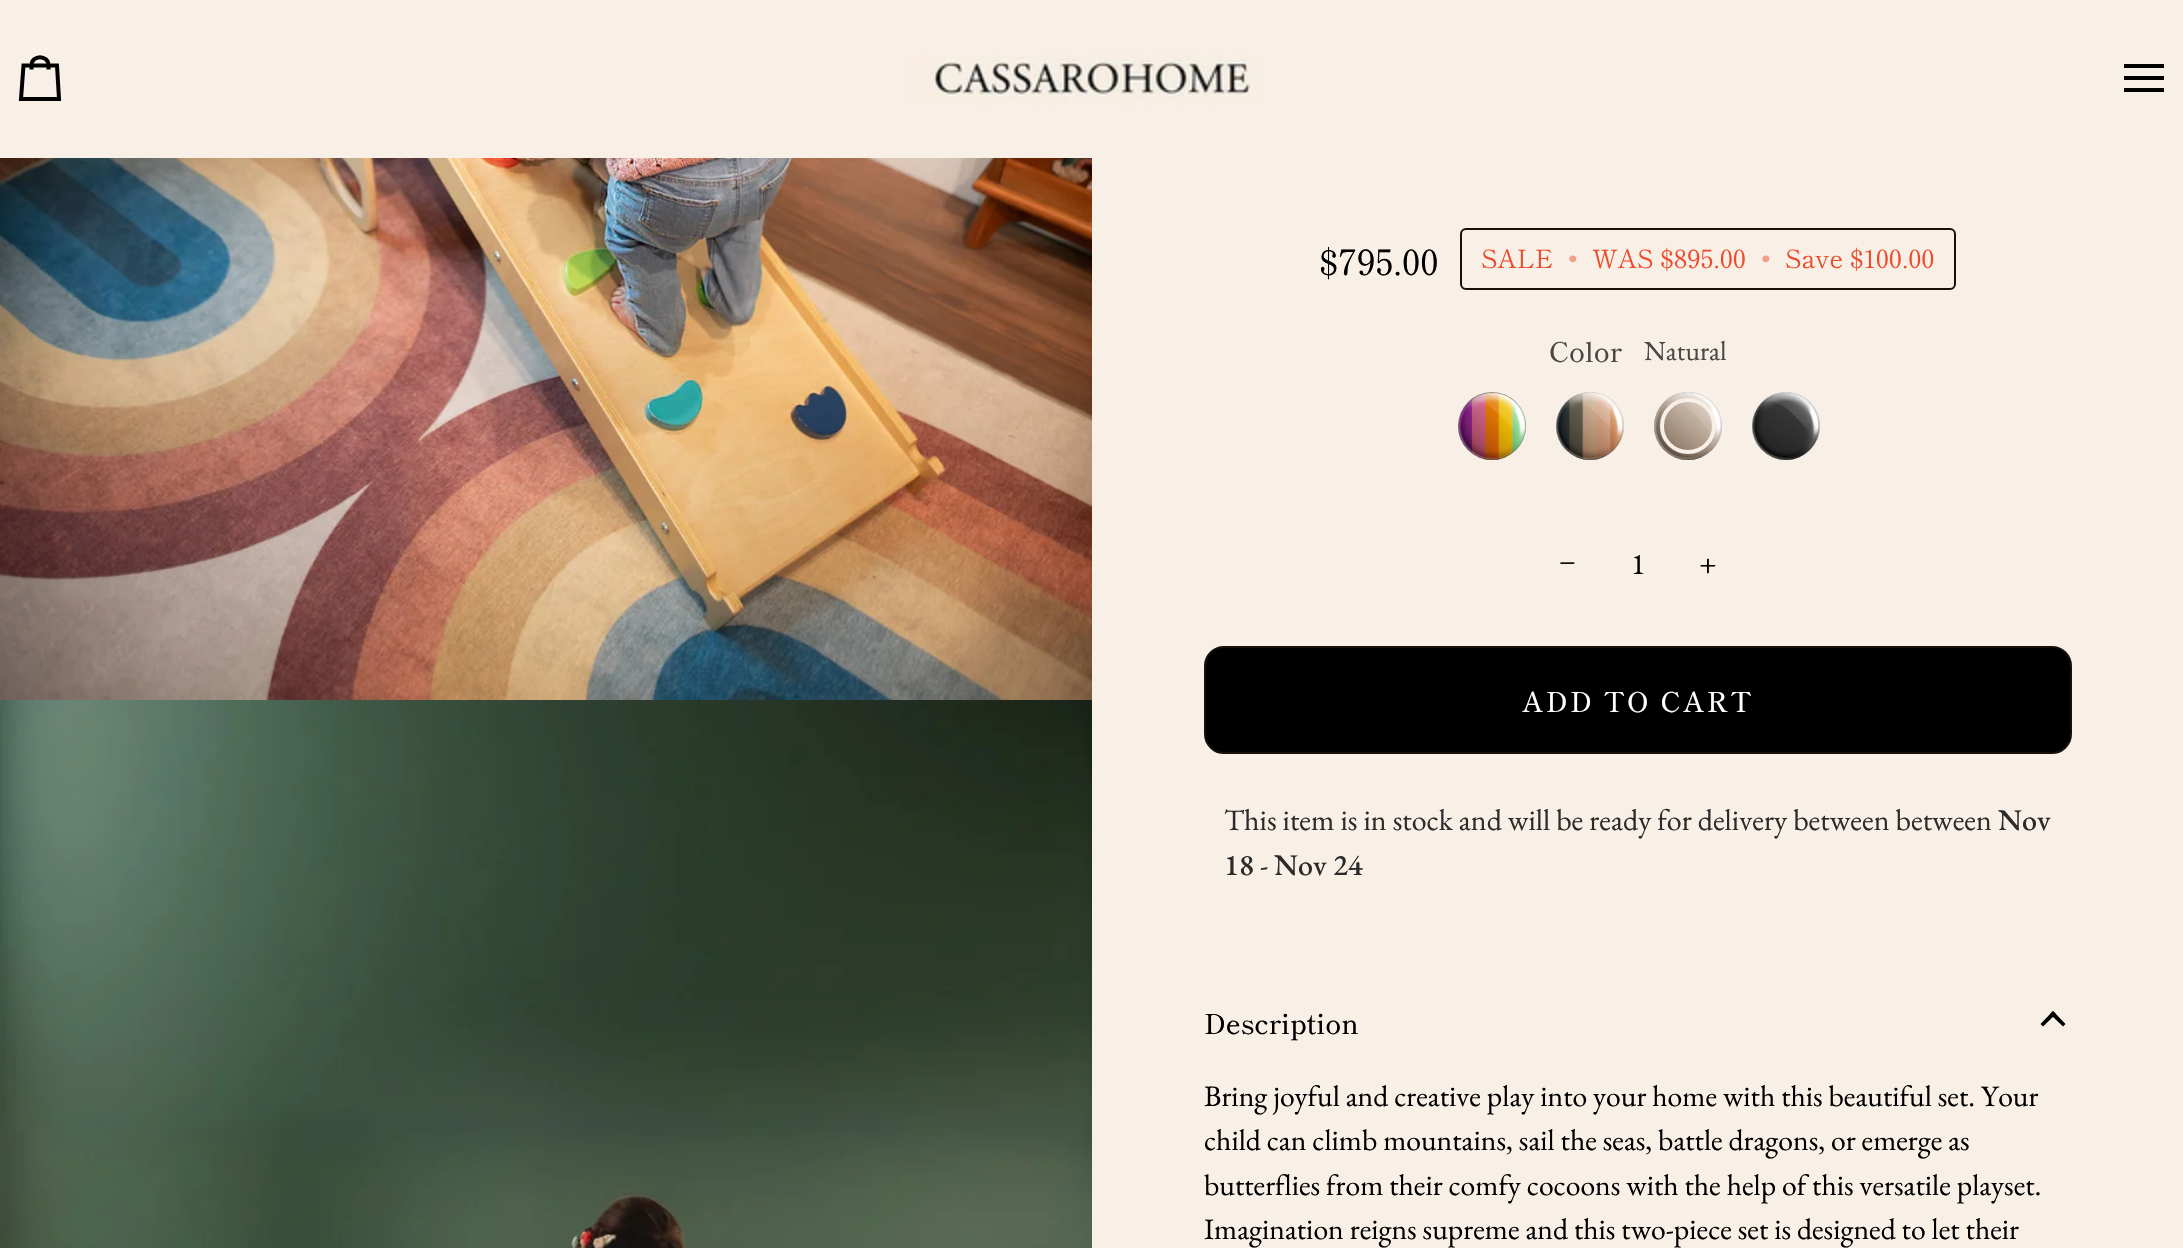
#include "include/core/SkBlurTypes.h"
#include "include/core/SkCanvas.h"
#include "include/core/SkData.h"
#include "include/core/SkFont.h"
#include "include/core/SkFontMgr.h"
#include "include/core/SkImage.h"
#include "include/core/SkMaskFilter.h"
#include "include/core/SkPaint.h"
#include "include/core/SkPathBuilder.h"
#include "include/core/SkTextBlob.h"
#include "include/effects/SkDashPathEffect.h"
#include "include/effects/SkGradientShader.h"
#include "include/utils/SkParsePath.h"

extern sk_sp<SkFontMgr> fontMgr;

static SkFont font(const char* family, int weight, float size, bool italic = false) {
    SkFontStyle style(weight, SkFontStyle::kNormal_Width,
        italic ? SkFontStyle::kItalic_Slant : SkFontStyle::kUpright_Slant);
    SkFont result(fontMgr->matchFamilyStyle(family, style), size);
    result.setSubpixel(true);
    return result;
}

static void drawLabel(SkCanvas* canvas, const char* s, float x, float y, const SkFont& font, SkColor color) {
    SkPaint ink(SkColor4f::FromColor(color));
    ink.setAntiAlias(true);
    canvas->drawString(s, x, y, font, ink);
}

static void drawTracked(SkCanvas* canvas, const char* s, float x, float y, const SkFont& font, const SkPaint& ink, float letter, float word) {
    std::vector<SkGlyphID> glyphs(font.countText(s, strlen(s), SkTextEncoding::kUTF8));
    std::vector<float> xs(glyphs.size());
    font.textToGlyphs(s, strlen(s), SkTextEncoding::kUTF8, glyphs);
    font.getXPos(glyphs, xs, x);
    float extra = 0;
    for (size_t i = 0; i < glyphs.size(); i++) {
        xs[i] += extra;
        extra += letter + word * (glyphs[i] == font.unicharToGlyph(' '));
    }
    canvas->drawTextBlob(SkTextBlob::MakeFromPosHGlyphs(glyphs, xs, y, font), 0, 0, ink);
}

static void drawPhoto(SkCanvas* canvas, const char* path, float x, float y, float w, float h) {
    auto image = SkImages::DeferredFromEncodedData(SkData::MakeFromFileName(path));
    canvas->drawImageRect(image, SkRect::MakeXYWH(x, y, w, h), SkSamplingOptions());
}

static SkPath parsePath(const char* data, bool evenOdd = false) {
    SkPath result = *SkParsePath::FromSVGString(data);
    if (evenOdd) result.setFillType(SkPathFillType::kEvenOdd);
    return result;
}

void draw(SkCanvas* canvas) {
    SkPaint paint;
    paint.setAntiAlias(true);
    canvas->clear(0xFFF8F0E7);
    paint.setStroke(true);
    paint.setStrokeWidth(4);
    paint.setColor(0xFF000000);
    canvas->drawPath(parsePath("M48.5 69.5V65.5H57L59 99H21L23.5 65.5H31.5C31.5 54.5 48.5 54.5 48.5 65.5H31.5V69.5"), paint);
    drawPhoto(canvas, "assets/img1.png", 908, 54, 352, 52);
    paint.setStrokeCap(SkPaint::kSquare_Cap);
    canvas->drawPath(parsePath("M2162 66H2126M2162 78H2126M2162 90H2126"), paint);
    drawPhoto(canvas, "assets/img2.png", 0, 158, 1092, 542);
    drawPhoto(canvas, "assets/img3.png", 0, 700, 1092, 548);
    SkFont font1 = font("Shippori Mincho", 400, 35);
    drawLabel(canvas, "$795.00", 1319, 275, font1, 0xFF000000);
    paint.setStrokeWidth(2);
    paint.setStrokeCap(SkPaint::kButt_Cap);
    paint.setColor(0xFF191008);
    canvas->drawRoundRect(SkRect::MakeXYWH(1461, 229, 494, 60), 5, 5, paint);
    SkFont font2 = font("Shippori Mincho", 400, 25.25f);
    drawLabel(canvas, "SALE", 1481, 268, font2, 0xFFEE4B2B);
    drawLabel(canvas, "•", 1568, 268, font2, 0xFFF39E89);
    drawLabel(canvas, "WAS $895.00", 1592, 268, font2, 0xFFEE4B2B);
    drawLabel(canvas, "•", 1761, 268, font2, 0xFFF39E89);
    drawLabel(canvas, "Save $100.00", 1785, 268, font2, 0xFFEE4B2B);
    SkFont font3 = font("Shippori Mincho", 500, 27.5f);
    drawLabel(canvas, "Color", 1549, 362, font3, 0xFF4A4845);
    SkFont font4 = font("EB Garamond", 400, 27.5f);
    drawLabel(canvas, "Natural", 1644, 360, font4, 0xFF4A4845);
    paint.setStroke(false);
    paint.setColor(0xFF888888);
    canvas->drawCircle(1492, 426, 34, paint);
    drawPhoto(canvas, "assets/img4.png", 1458, 392, 68, 68);
    canvas->drawCircle(1590, 426, 34, paint);
    drawPhoto(canvas, "assets/img5.png", 1556, 392, 68, 68);
    canvas->drawCircle(1688, 426, 34, paint);
    drawPhoto(canvas, "assets/img6.png", 1654, 392, 68, 68);
    paint.setStroke(true);
    paint.setStrokeWidth(4);
    paint.setColor(0xFFF8F0E7);
    canvas->drawCircle(1688, 426, 26, paint);
    paint.setStroke(false);
    paint.setColor(0xFF888888);
    canvas->drawCircle(1786, 426, 34, paint);
    drawPhoto(canvas, "assets/img7.png", 1752, 392, 68, 68);
    SkFont font5 = font("Liberation Serif", 400, 29.7f);
    drawLabel(canvas, "−", 1559, 573, font5, 0xFF000000);
    SkFont font6 = font("EB Garamond", 400, 29.7f);
    drawLabel(canvas, "1", 1631, 574, font6, 0xFF000000);
    drawLabel(canvas, "+", 1699, 573, font6, 0xFF000000);
    paint.setColor(0xFF000000);
    canvas->drawRoundRect(SkRect::MakeXYWH(1205, 647, 866, 106), 19, 19, paint);
    paint.setStroke(true);
    paint.setStrokeWidth(2);
    paint.setColor(0xFF191008);
    canvas->drawRoundRect(SkRect::MakeXYWH(1205, 647, 866, 106), 19, 19, paint);
    paint.setStroke(false);
    paint.setColor(0xFFFFFFFF);
    drawTracked(canvas, "ADD TO CART", 1522, 712, font3, paint, 2.5f, 0);
    SkFont font7 = font("EB Garamond", 400, 30);
    drawLabel(canvas, "This item is in stock and will be ready for delivery between between", 1224, 830, font7, 0xFF2A2B2A);
    SkFont font8 = font("EB Garamond", 500, 30);
    drawLabel(canvas, "Nov", 1998, 830, font8, 0xFF2A2B2A);
    drawLabel(canvas, "18", 1224, 875, font8, 0xFF2A2B2A);
    drawLabel(canvas, "-", 1260, 875, font7, 0xFF2A2B2A);
    drawLabel(canvas, "Nov 24", 1274, 875, font8, 0xFF2A2B2A);
    drawLabel(canvas, "Description", 1204, 1034, font3, 0xFF000000);
    paint.setColor(0xFF000000);
    canvas->drawPath(parsePath("M2056 1014L2043 1026.5L2040.5 1024L2053 1011Z"), paint);
    canvas->drawPath(parsePath("M2065.5 1024L2063 1026.5L2050 1014L2053 1011Z"), paint);
    drawLabel(canvas, "Bring joyful and creative play into your home with this beautiful set.", 1204, 1106, font6, 0xFF000000);
    drawLabel(canvas, "Your", 1981, 1106, font6, 0xFF000000);
    drawLabel(canvas, "child can climb mountains, sail the seas, battle dragons, or emerge as", 1204, 1150, font6, 0xFF000000);
    drawLabel(canvas, "butterflies from their comfy cocoons with the help of this versatile playset.", 1204, 1195, font6, 0xFF000000);
    drawLabel(canvas, "Imagination reigns supreme and this two-piece set is designed to let their", 1204, 1239, font6, 0xFF000000);
}
